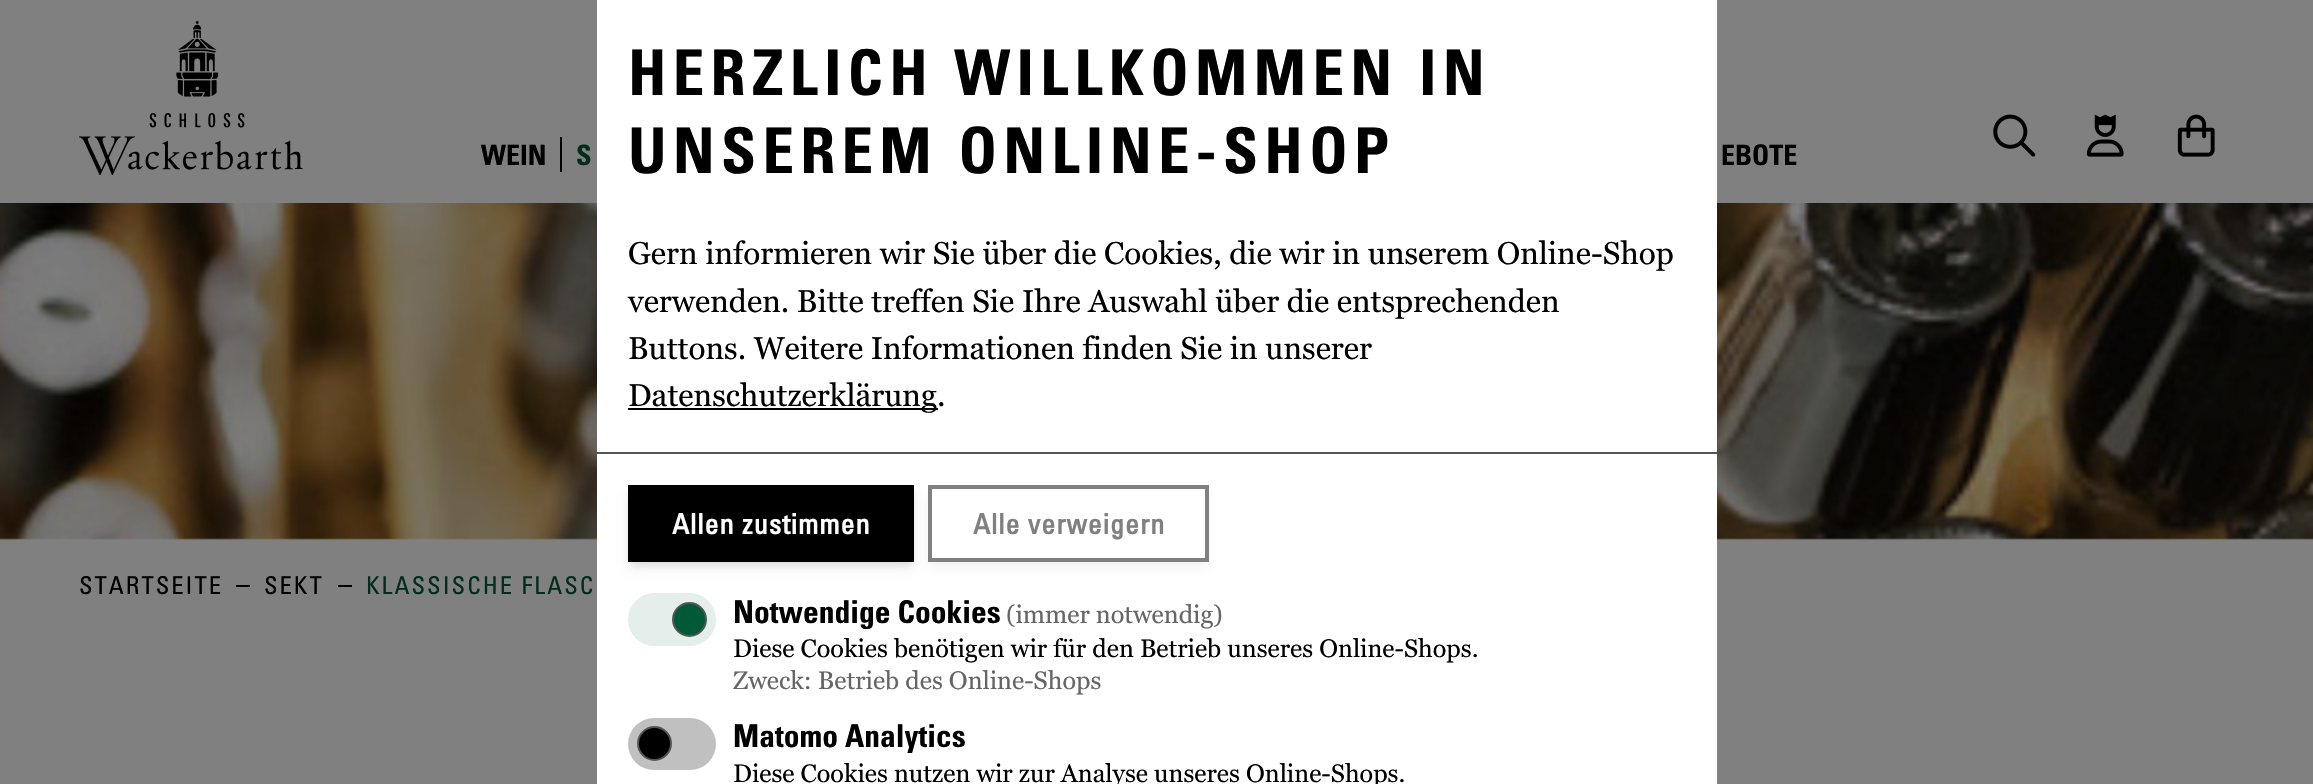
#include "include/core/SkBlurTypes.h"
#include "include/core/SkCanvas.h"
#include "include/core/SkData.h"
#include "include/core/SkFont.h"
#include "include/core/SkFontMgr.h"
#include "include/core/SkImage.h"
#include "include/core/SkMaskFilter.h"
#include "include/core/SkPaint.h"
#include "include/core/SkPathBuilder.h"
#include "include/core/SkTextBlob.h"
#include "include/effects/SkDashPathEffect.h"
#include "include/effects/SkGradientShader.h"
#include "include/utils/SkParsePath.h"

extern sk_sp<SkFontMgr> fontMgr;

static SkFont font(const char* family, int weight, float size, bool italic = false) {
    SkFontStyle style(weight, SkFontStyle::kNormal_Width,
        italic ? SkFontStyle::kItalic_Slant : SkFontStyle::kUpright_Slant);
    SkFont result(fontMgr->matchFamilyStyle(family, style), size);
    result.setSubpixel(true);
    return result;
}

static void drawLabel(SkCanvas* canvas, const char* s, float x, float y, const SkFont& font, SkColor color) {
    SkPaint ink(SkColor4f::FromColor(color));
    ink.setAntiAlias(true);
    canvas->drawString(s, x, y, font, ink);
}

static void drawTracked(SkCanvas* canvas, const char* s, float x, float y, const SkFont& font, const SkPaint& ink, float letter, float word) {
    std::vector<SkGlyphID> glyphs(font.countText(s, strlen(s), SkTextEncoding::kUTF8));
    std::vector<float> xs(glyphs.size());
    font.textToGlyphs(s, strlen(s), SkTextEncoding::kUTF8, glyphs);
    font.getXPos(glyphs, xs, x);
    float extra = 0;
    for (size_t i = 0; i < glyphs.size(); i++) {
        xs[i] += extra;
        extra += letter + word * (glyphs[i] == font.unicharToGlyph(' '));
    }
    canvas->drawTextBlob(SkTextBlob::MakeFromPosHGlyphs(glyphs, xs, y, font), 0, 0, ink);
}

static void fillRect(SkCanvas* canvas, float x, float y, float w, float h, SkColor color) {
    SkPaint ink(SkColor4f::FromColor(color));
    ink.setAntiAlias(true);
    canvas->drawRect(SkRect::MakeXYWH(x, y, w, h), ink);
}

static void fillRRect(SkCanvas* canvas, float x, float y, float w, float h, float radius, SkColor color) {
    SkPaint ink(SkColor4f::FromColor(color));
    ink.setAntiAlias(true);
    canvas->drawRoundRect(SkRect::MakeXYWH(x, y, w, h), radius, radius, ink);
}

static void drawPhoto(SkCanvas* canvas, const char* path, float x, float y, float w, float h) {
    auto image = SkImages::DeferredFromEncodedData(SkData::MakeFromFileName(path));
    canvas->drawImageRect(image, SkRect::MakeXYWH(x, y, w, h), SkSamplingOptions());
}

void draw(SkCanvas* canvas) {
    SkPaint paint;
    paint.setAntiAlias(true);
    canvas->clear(0xFF808080);
    drawPhoto(canvas, "assets/img5.png", 0, 203, 2313, 337);
    fillRect(canvas, 597, 0, 1120, 784, 0xFFFFFFFF);
    fillRect(canvas, 597, 452, 1120, 2, 0xFF555555);
    SkFont font1 = font("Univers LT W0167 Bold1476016", 700, 63);
    paint.setColor(0xFF000000);
    drawTracked(canvas, "HERZLICH WILLKOMMEN IN", 628, 95, font1, paint, 6.3f, 0);
    drawTracked(canvas, "UNSEREM ONLINE-SHOP", 628, 173, font1, paint, 6.3f, 0);
    SkFont font2 = font("Georgia", 400, 31.5f);
    drawLabel(canvas, "Gern informieren wir Sie über die Cookies, die wir in unserem Online-Shop", 628, 264, font2, 0xFF000000);
    drawLabel(canvas, "verwenden. Bitte treffen Sie Ihre Auswahl über die entsprechenden", 628, 312, font2, 0xFF000000);
    drawLabel(canvas, "Buttons. Weitere Informationen finden Sie in unserer", 628, 359, font2, 0xFF000000);
    fillRect(canvas, 628, 408, 310, 2, 0xFF000000);
    drawLabel(canvas, "Datenschutzerklärung.", 628, 406, font2, 0xFF000000);
    paint.setColor(0x0F000000);
    paint.setMaskFilter(SkMaskFilter::MakeBlur(kNormal_SkBlurStyle, 3.5f));
    canvas->drawRect(SkRect::MakeXYWH(630, 490, 282, 74), paint);
    paint.setMaskFilter(nullptr);
    paint.setColor(0x1A000000);
    paint.setMaskFilter(SkMaskFilter::MakeBlur(kNormal_SkBlurStyle, 5));
    canvas->drawRect(SkRect::MakeXYWH(630, 494, 282, 73), paint);
    paint.setMaskFilter(nullptr);
    fillRect(canvas, 628, 485, 286, 77, 0xFF000000);
    SkFont font3 = font("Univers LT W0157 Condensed", 700, 28);
    paint.setColor(0xFFFFFFFF);
    drawTracked(canvas, "Allen zustimmen", 672, 534, font3, paint, 1, 0);
    paint.setColor(0x1A7F7F7F);
    paint.setMaskFilter(SkMaskFilter::MakeBlur(kNormal_SkBlurStyle, 5));
    canvas->drawRect(SkRect::MakeXYWH(929, 494, 279, 73), paint);
    paint.setMaskFilter(nullptr);
    fillRect(canvas, 932, 490, 273, 68, 0xFFFFFFFF);
    paint.setStroke(true);
    paint.setStrokeWidth(4);
    paint.setColor(0xFF808080);
    canvas->drawRect(SkRect::MakeXYWH(930, 487, 277, 73), paint);
    paint.setStroke(false);
    drawTracked(canvas, "Alle verweigern", 973, 534, font3, paint, 1, 0);
    fillRRect(canvas, 628, 593, 88, 53, 26.5f, 0xFFE4EEEA);
    paint.setColor(0xFF005A38);
    canvas->drawCircle(689.5f, 619.5f, 16.5f, paint);
    paint.setStroke(true);
    paint.setStrokeWidth(2);
    paint.setColor(0xFF555555);
    canvas->drawCircle(689.5f, 619.5f, 16.5f, paint);
    SkFont font4 = font("Univers LT W0167 Bold1476016", 700, 31.5f);
    drawLabel(canvas, "Notwendige Cookies", 733, 623, font4, 0xFF000000);
    SkFont font5 = font("Georgia", 400, 25.2f);
    drawLabel(canvas, "(immer notwendig)", 1006, 623, font5, 0xFF656565);
    drawLabel(canvas, "Diese Cookies benötigen wir für den Betrieb unseres Online-Shops.", 733, 657, font5, 0xFF000000);
    drawLabel(canvas, "Zweck: Betrieb des Online-Shops", 733, 689, font5, 0xFF656565);
    fillRRect(canvas, 628, 718, 88, 52, 26, 0xFFC0C0C0);
    paint.setStroke(false);
    paint.setColor(0xFF000000);
    canvas->drawCircle(654.5f, 743.5f, 16.5f, paint);
    paint.setStroke(true);
    paint.setColor(0xFF555555);
    canvas->drawCircle(654.5f, 743.5f, 16.5f, paint);
    drawLabel(canvas, "Matomo Analytics", 733, 747, font4, 0xFF000000);
    drawLabel(canvas, "Diese Cookies nutzen wir zur Analyse unseres Online-Shops.", 733, 782, font5, 0xFF000000);
    drawPhoto(canvas, "assets/img1.png", 79, 21, 224, 154);
    SkFont font6 = font("Univers LT W0167 Bold1476016", 700, 28);
    drawLabel(canvas, "WEIN", 481, 165, font6, 0xFF000000);
    fillRect(canvas, 560, 137, 2, 35, 0xFF000000);
    drawLabel(canvas, "S", 576, 165, font6, 0xFF002D1C);
    drawLabel(canvas, "EBOTE", 1721, 165, font6, 0xFF000000);
    drawPhoto(canvas, "assets/img2.png", 1993, 114, 43, 43);
    drawPhoto(canvas, "assets/img3.png", 2086, 114, 38, 43);
    drawPhoto(canvas, "assets/img4.png", 2177, 114, 38, 43);
    SkFont font7 = font("Univers LT W0157 Condensed", 400, 24.5f);
    paint.setStroke(false);
    paint.setColor(0xFF000000);
    drawTracked(canvas, "STARTSEITE", 79, 594, font7, paint, 2, 0);
    fillRect(canvas, 236, 585, 14, 2, 0xFF000000);
    drawTracked(canvas, "SEKT", 264, 594, font7, paint, 2, 0);
    fillRect(canvas, 338, 585, 14, 2, 0xFF000000);
    paint.setColor(0xFF002D1C);
    drawTracked(canvas, "KLASSISCHE FLASC", 366, 594, font7, paint, 2, 0);
}
